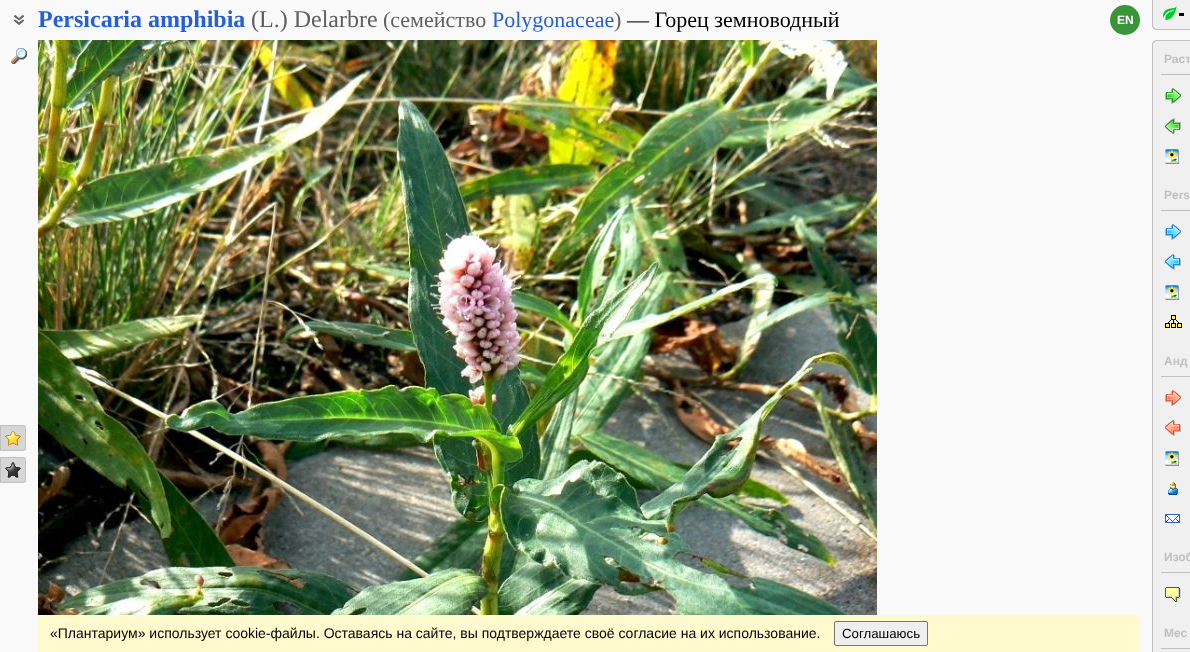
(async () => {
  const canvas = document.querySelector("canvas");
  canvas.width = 1190;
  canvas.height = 652;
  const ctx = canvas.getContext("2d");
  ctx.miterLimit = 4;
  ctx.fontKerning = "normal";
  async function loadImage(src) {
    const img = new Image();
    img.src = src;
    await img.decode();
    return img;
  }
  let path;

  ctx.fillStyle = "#f9f9f9";
  ctx.fillRect(0, 0, 1190, 652);
  ctx.drawImage(await loadImage("img/1.png"), 14, 15, 10, 10);
  ctx.fillStyle = "#389638";
  ctx.beginPath();
  ctx.arc(1125, 20, 15, 0, Math.PI * 2);
  ctx.fill();
  ctx.drawImage(await loadImage("img/2.png"), 11, 48, 16, 16);
  ctx.fillStyle = "#d6d6d6";
  ctx.beginPath();
  ctx.roundRect(0, 425, 26, 26, [0, 3, 3, 0]);
  ctx.fill();
  ctx.drawImage(await loadImage("img/3.png"), 5, 431, 16, 15);
  ctx.beginPath();
  ctx.roundRect(0.5, 425.5, 25, 25, [0, 2.5, 2.5, 0]);
  ctx.strokeStyle = "#c0c0c0";
  ctx.stroke();
  ctx.beginPath();
  ctx.roundRect(0, 457, 26, 26, [0, 3, 3, 0]);
  ctx.fill();
  ctx.drawImage(await loadImage("img/4.png"), 5, 462, 16, 16);
  ctx.beginPath();
  ctx.roundRect(0.5, 457.5, 25, 25, [0, 2.5, 2.5, 0]);
  ctx.stroke();
  ctx.drawImage(await loadImage("img/5.png"), 38, 40, 839, 575);
  ctx.fillStyle = "#f0f0f0";
  ctx.beginPath();
  ctx.roundRect(1152, 0, 38, 30, [0, 0, 0, 5]);
  ctx.fill();
  ctx.drawImage(await loadImage("img/6.png"), 1163, 6, 14, 14);
  ctx.fillStyle = "#c0c0c0";
  path = new Path2D("M1152 0H1190V30H1157C1154 30 1152 28 1152 25ZM1153 0H1190V29H1157C1155 29 1153 27 1153 25Z");
  ctx.fill(path, "evenodd");
  ctx.fillStyle = "#000000";
  ctx.fillRect(1179, 13, 5, 3);
  ctx.fillStyle = "#f0f0f0";
  path = new Path2D("M1157 40H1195V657H1157C1154 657 1152 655 1152 652V45C1152 42 1154 40 1157 40Z");
  ctx.fill(path);
  ctx.fillStyle = "#c0c0c0";
  path = new Path2D("M1157 40H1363V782H1157C1154 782 1152 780 1152 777V45C1152 42 1154 40 1157 40ZM1157 41H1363V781H1157C1155 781 1153 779 1153 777V45C1153 43 1155 41 1157 41Z");
  ctx.fill(path, "evenodd");
  ctx.fillRect(1161, 74, 29, 1);
  ctx.drawImage(await loadImage("img/7.png"), 1165, 88, 16, 16);
  ctx.drawImage(await loadImage("img/8.png"), 1165, 118, 16, 16);
  ctx.drawImage(await loadImage("img/9.png"), 1165, 149, 14, 15);
  ctx.fillRect(1161, 210, 29, 1);
  ctx.drawImage(await loadImage("img/10.png"), 1165, 224, 16, 16);
  ctx.drawImage(await loadImage("img/11.png"), 1165, 254, 16, 16);
  ctx.drawImage(await loadImage("img/9.png"), 1165, 285, 14, 15);
  ctx.drawImage(await loadImage("img/12.png"), 1165, 315, 17, 13);
  ctx.fillRect(1161, 376, 29, 1);
  ctx.drawImage(await loadImage("img/13.png"), 1165, 390, 16, 16);
  ctx.drawImage(await loadImage("img/14.png"), 1165, 420, 16, 16);
  ctx.drawImage(await loadImage("img/9.png"), 1165, 451, 14, 15);
  ctx.drawImage(await loadImage("img/15.png"), 1168, 482, 10, 13);
  ctx.drawImage(await loadImage("img/16.png"), 1165, 514, 15, 9);
  ctx.fillRect(1161, 572, 29, 1);
  ctx.drawImage(await loadImage("img/17.png"), 1165, 587, 16, 15);
  ctx.fillRect(1161, 648, 29, 1);
  ctx.fillStyle = "#fffacd";
  ctx.fillRect(38, 615, 1102, 37);
  ctx.fillStyle = "#efefef";
  ctx.beginPath();
  ctx.roundRect(834.5, 621.5, 93, 24, 1.5);
  ctx.fill();
  ctx.strokeStyle = "#767676";
  ctx.stroke();
  ctx.font = "bold 24px Liberation Serif";
  ctx.fillStyle = "#245edc";
  ctx.fillText("Persicaria amphibia", 38, 27);
  ctx.font = "24px Liberation Serif";
  ctx.fillStyle = "#606060";
  ctx.fillText("(L.) Delarbre", 251, 27);
  ctx.font = "22px Liberation Serif";
  ctx.fillText("(семейство", 383, 27);
  ctx.fillStyle = "#245edc";
  ctx.fillText("Polygonaceae", 492, 27);
  ctx.fillStyle = "#606060";
  ctx.fillText(")", 614, 27);
  ctx.fillStyle = "#000000";
  ctx.fillText("— Горец земноводный", 627, 27);
  ctx.font = "bold 12px Liberation Sans";
  ctx.fillStyle = "#fefefe";
  ctx.fillText("EN", 1117, 24);
  ctx.fillStyle = "#c0c0c0";
  for (const [text, x, y] of [
    ["Раст", 1164, 63],
    ["Pers", 1164, 199],
    ["Анд", 1164, 365],
    ["Изоб", 1164, 561],
    ["Мес", 1164, 637],
  ]) {
    ctx.fillText(text, x, y);
  }
  ctx.font = "14px Liberation Sans";
  ctx.fillStyle = "#000000";
  ctx.fillText("«Плантариум» использует cookie-файлы. Оставаясь на сайте, вы подтверждаете своё согласие на их использование.", 50, 638);
  ctx.font = "13.25px Liberation Sans";
  ctx.fillText("Соглашаюсь", 842, 638);
})();
